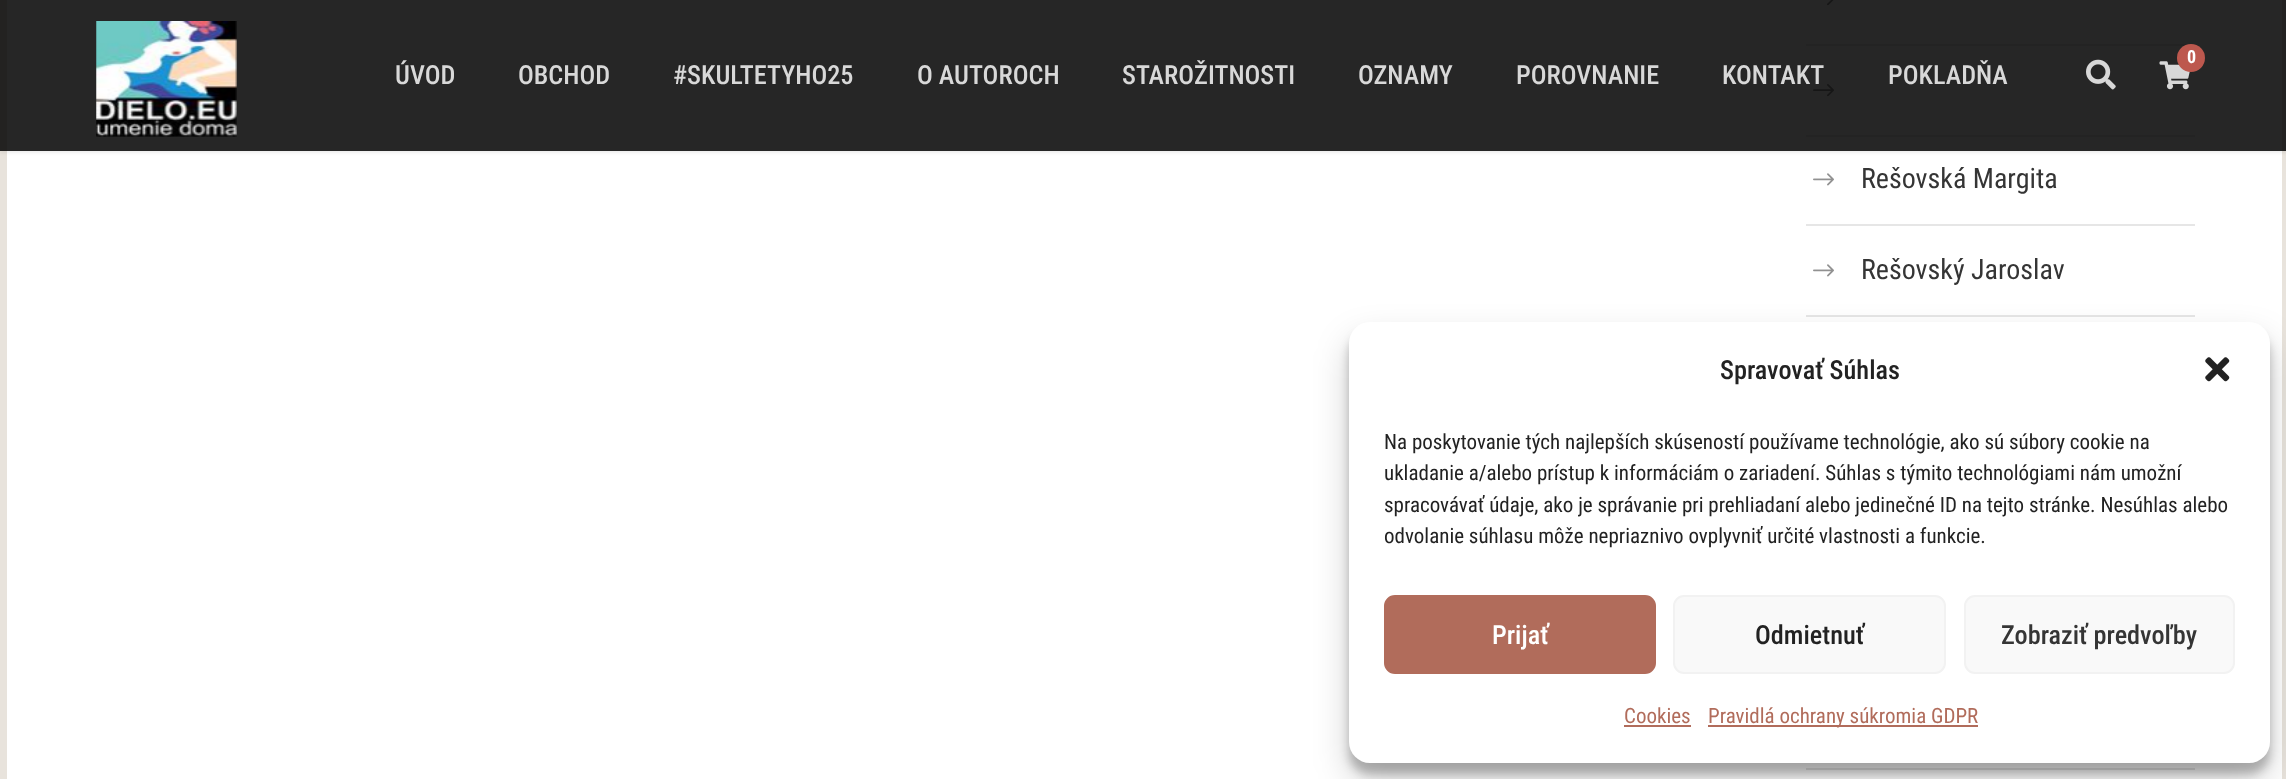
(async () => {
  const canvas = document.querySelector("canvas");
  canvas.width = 2286;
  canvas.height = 779;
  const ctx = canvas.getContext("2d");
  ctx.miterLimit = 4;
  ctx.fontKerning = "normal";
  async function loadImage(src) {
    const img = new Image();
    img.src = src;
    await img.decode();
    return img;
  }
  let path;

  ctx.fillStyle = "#e8e3dc";
  ctx.fillRect(0, 0, 2286, 779);
  ctx.fillStyle = "#ffffff";
  ctx.fillRect(7, 0, 2275, 779);
  ctx.drawImage(await loadImage("img/4.png"), 1827, 0, 7, 6);
  ctx.fillStyle = "#e6e6e6";
  ctx.fillRect(1806, 44, 389, 2);
  ctx.drawImage(await loadImage("img/5.png"), 1813, 84, 21, 13);
  ctx.fillRect(1806, 135, 389, 2);
  ctx.save();
  path = new Path2D("M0 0H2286V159H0ZM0 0H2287V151H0Z");
  ctx.clip(path, "evenodd");
  ctx.fillStyle = "rgba(0, 0, 0, 0.1)";
  ctx.filter = "blur(2px)";
  ctx.beginPath();
  ctx.rect(0, 2, 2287, 150);
  ctx.fill();
  ctx.filter = "none";
  ctx.restore();
  ctx.fillStyle = "rgba(0, 0, 0, 0.85)";
  ctx.fillRect(0, 0, 2286, 151);
  ctx.drawImage(await loadImage("img/1.png"), 96, 21, 141, 116);
  ctx.drawImage(await loadImage("img/2.png"), 2159, 61, 31, 29);
  ctx.fillStyle = "#bd584e";
  ctx.beginPath();
  ctx.arc(2191, 58, 14, 0, Math.PI * 2);
  ctx.fill();
  ctx.drawImage(await loadImage("img/3.png"), 2086, 59, 30, 31);
  ctx.drawImage(await loadImage("img/6.png"), 1813, 173, 21, 13);
  ctx.fillStyle = "#e6e6e6";
  ctx.fillRect(1806, 224, 389, 2);
  ctx.drawImage(await loadImage("img/6.png"), 1813, 264, 21, 13);
  ctx.fillRect(1806, 315, 389, 2);
  ctx.fillRect(1806, 768, 389, 2);
  ctx.fillStyle = "rgba(0, 0, 0, 0.23)";
  ctx.filter = "blur(5px)";
  ctx.beginPath();
  ctx.roundRect(1349, 333, 921, 441, 21);
  ctx.fill();
  ctx.filter = "none";
  ctx.fillStyle = "rgba(0, 0, 0, 0.19)";
  ctx.filter = "blur(17.5px)";
  ctx.beginPath();
  ctx.roundRect(1349, 340, 921, 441, 21);
  ctx.fill();
  ctx.filter = "none";
  ctx.fillStyle = "#ffffff";
  ctx.beginPath();
  ctx.roundRect(1349, 322, 921, 441, 21);
  ctx.fill();
  ctx.drawImage(await loadImage("img/7.png"), 2205, 357, 25, 25);
  ctx.fillStyle = "#b16c5b";
  ctx.beginPath();
  ctx.roundRect(1385, 596, 270, 77, 10);
  ctx.fill();
  ctx.strokeStyle = "#b16c5b";
  ctx.lineWidth = 2;
  ctx.stroke();
  ctx.fillStyle = "#f9f9f9";
  ctx.beginPath();
  ctx.roundRect(1674, 596, 271, 77, 10);
  ctx.fill();
  ctx.strokeStyle = "#f2f2f2";
  ctx.stroke();
  ctx.beginPath();
  ctx.roundRect(1965, 596, 269, 77, 10);
  ctx.fill();
  ctx.stroke();
  ctx.fillStyle = "#b16c5b";
  ctx.fillRect(1624, 725, 67, 2);
  ctx.fillRect(1708, 725, 270, 2);
  ctx.font = "bold 18px Roboto Condensed";
  ctx.fillStyle = "#ffffff";
  ctx.fillText("0", 2187, 63);
  ctx.font = "500 26.25px Roboto Condensed";
  ctx.fillStyle = "#d8d8d8";
  for (const [text, x, y] of [
    ["ÚVOD", 395, 84],
    ["OBCHOD", 518, 84],
    ["#SKULTETYHO25", 673, 84],
    ["O AUTOROCH", 917, 84],
    ["STAROŽITNOSTI", 1122, 84],
    ["OZNAMY", 1358, 84],
    ["POROVNANIE", 1516, 84],
    ["KONTAKT", 1722, 84],
    ["POKLADŇA", 1888, 84],
  ]) {
    ctx.fillText(text, x, y);
  }
  ctx.font = "28px Roboto Condensed";
  ctx.fillStyle = "#353535";
  ctx.fillText("Rešovská Margita", 1861, 188);
  ctx.fillText("Rešovský Jaroslav", 1861, 279);
  ctx.font = "500 26.25px Roboto Condensed";
  ctx.fillStyle = "#222222";
  ctx.fillText("Spravovať Súhlas", 1720, 379);
  ctx.font = "21px Roboto Condensed";
  for (const [text, x, y] of [
    ["Na poskytovanie tých najlepších skúseností používame technológie, ako sú súbory cookie na", 1384, 449],
    ["ukladanie a/alebo prístup k informáciám o zariadení. Súhlas s týmito technológiami nám umožní", 1384, 480],
    ["spracovávať údaje, ako je správanie pri prehliadaní alebo jedinečné ID na tejto stránke. Nesúhlas alebo", 1384, 512],
    ["odvolanie súhlasu môže nepriaznivo ovplyvniť určité vlastnosti a funkcie.", 1384, 543],
  ]) {
    ctx.fillText(text, x, y);
  }
  ctx.font = "500 26.25px Roboto Condensed";
  ctx.fillStyle = "#ffffff";
  ctx.fillText("Prijať", 1492, 644);
  ctx.fillStyle = "#222222";
  ctx.fillText("Odmietnuť", 1755, 644);
  ctx.fillStyle = "#353535";
  ctx.fillText("Zobraziť predvoľby", 2001, 644);
  ctx.font = "21px Roboto Condensed";
  ctx.fillStyle = "#b16c5b";
  ctx.fillText("Cookies", 1624, 723);
  ctx.fillText("Pravidlá ochrany súkromia GDPR", 1708, 723);
})();
